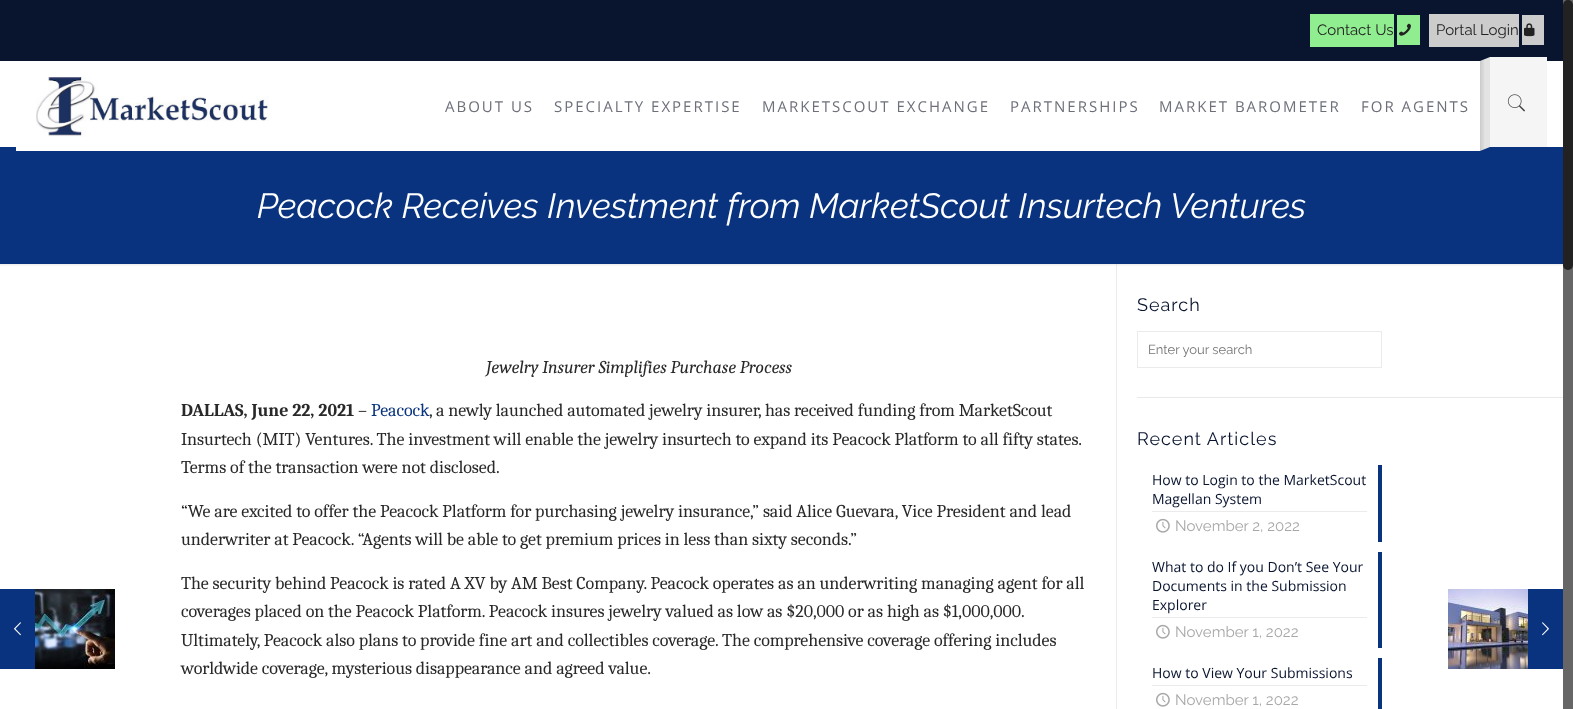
(async () => {
  const canvas = document.querySelector("canvas");
  canvas.width = 1573;
  canvas.height = 709;
  const ctx = canvas.getContext("2d");
  ctx.miterLimit = 4;
  ctx.fontKerning = "normal";
  async function loadImage(src) {
    const img = new Image();
    img.src = src;
    await img.decode();
    return img;
  }
  let path;

  ctx.fillStyle = "#ffffff";
  ctx.fillRect(0, 0, 1573, 709);
  ctx.fillStyle = "#09337f";
  ctx.fillRect(0, 589, 35, 80);
  ctx.drawImage(await loadImage("img/1.png"), 14, 622, 7, 14);
  ctx.drawImage(await loadImage("img/2.png"), 35, 589, 80, 80);
  for (const [x, y, w, h, color] of [
    [0, 0, 1563, 61, "#09142f"],
    [1310, 14, 84, 33, "#90ee90"],
    [1397, 15, 23, 30, "#90ee90"],
  ]) {
    ctx.fillStyle = color;
    ctx.fillRect(x, y, w, h);
  }
  ctx.drawImage(await loadImage("img/3.png"), 1399, 23, 12, 13);
  ctx.fillStyle = "#cccccc";
  ctx.fillRect(1429, 14, 90, 33);
  ctx.fillRect(1522, 15, 22, 30);
  ctx.drawImage(await loadImage("img/4.png"), 1524, 23, 11, 14);
  ctx.fillStyle = "#09337f";
  ctx.fillRect(0, 147, 1563, 117);
  ctx.fillStyle = "#ffffff";
  ctx.fillRect(16, 147, 1464, 4);
  ctx.drawImage(await loadImage("img/5.png"), 36, 77, 233, 60);
  ctx.fillStyle = "#f5f5f5";
  ctx.fillRect(1490, 57, 57, 90);
  ctx.fillStyle = "#e3e3e3";
  path = new Path2D("M1480 61L1490 57V147L1480 151Z");
  ctx.fill(path);
  ctx.drawImage(await loadImage("img/6.png"), 1480, 60, 4, 91);
  ctx.drawImage(await loadImage("img/7.png"), 1507, 94, 19, 18);
  ctx.fillStyle = "#ebebeb";
  ctx.fillRect(1116, 264, 1, 445);
  ctx.drawImage(await loadImage("img/8.png"), 0, 264, 1563, 2);
  ctx.strokeStyle = "#ebebeb";
  ctx.strokeRect(1137.5, 331.5, 244, 36);
  for (const [x, y, w, h, color] of [
    [1137, 397, 426, 1, "#e9e9e9"],
    [1152, 511, 215, 1, "#ebebeb"],
    [1378, 465, 4, 77, "#09337f"],
  ]) {
    ctx.fillStyle = color;
    ctx.fillRect(x, y, w, h);
  }
  ctx.drawImage(await loadImage("img/9.png"), 1156, 518, 14, 15);
  ctx.fillStyle = "#ebebeb";
  ctx.fillRect(1152, 617, 215, 1);
  ctx.fillStyle = "#09337f";
  ctx.fillRect(1378, 552, 4, 96);
  ctx.drawImage(await loadImage("img/9.png"), 1156, 624, 14, 15);
  ctx.fillStyle = "#ebebeb";
  ctx.fillRect(1152, 685, 215, 1);
  ctx.fillStyle = "#09337f";
  ctx.fillRect(1378, 658, 4, 51);
  ctx.drawImage(await loadImage("img/9.png"), 1156, 692, 14, 15);
  ctx.fillStyle = "#666666";
  ctx.fillRect(1563, 0, 10, 709);
  ctx.fillStyle = "#222222";
  ctx.beginPath();
  ctx.roundRect(1563, 0, 10, 270, 5);
  ctx.fill();
  ctx.drawImage(await loadImage("img/10.png"), 1448, 589, 80, 80);
  ctx.fillStyle = "#09337f";
  ctx.fillRect(1528, 589, 35, 80);
  ctx.drawImage(await loadImage("img/11.png"), 1542, 622, 7, 14);
  ctx.font = "100 15px Raleway";
  ctx.fillStyle = "#222222";
  ctx.fillText("Contact Us", 1317, 35);
  ctx.fillText("Portal Login", 1436, 35);
  ctx.letterSpacing = "2px";
  ctx.font = "15px Open Sans";
  ctx.fillStyle = "#6d7079";
  for (const [text, x, y] of [
    ["ABOUT US", 445, 112],
    ["SPECIALTY EXPERTISE", 554, 112],
    ["MARKETSCOUT EXCHANGE", 762, 112],
    ["PARTNERSHIPS", 1010, 112],
    ["MARKET BAROMETER", 1159, 112],
    ["FOR AGENTS", 1361, 112],
  ]) {
    ctx.fillText(text, x, y);
  }
  ctx.letterSpacing = "0px";
  ctx.font = "italic 100 35px Raleway";
  ctx.fillStyle = "#ffffff";
  ctx.fillText("Peacock Receives Investment from MarketScout Insurtech Ventures", 257, 218);
  ctx.letterSpacing = "-0.07px";
  ctx.font = "italic 18px Caladea";
  ctx.fillStyle = "#292929";
  ctx.fillText("Jewelry Insurer Simplifies Purchase Process", 486, 373);
  ctx.font = "bold 18px Caladea";
  ctx.fillText("DALLAS, June 22, 2021", 181, 416);
  ctx.font = "18px Caladea";
  ctx.fillText("–", 358, 416);
  ctx.fillStyle = "#09337f";
  ctx.fillText("Peacock", 371, 416);
  ctx.fillStyle = "#292929";
  for (const [text, x, y] of [
    [", a newly launched automated jewelry insurer, has received funding from MarketScout", 429, 416],
    ["Insurtech (MIT) Ventures. The investment will enable the jewelry insurtech to expand its Peacock Platform to all fifty states.", 181, 445],
    ["Terms of the transaction were not disclosed.", 181, 473],
    ["“We are excited to offer the Peacock Platform for purchasing jewelry insurance,” said Alice Guevara, Vice President and lead", 181, 517],
    ["underwriter at Peacock. “Agents will be able to get premium prices in less than sixty seconds.”", 181, 545],
    ["The security behind Peacock is rated A XV by AM Best Company. Peacock operates as an underwriting managing agent for all", 181, 589],
    ["coverages placed on the Peacock Platform. Peacock insures jewelry valued as low as $20,000 or as high as $1,000,000.", 181, 617],
    ["Ultimately, Peacock also plans to provide fine art and collectibles coverage. The comprehensive coverage offering includes", 181, 646],
    ["worldwide coverage, mysterious disappearance and agreed value.", 181, 674],
  ]) {
    ctx.fillText(text, x, y);
  }
  ctx.letterSpacing = "1px";
  ctx.font = "100 18px Raleway";
  ctx.fillStyle = "#09142f";
  ctx.fillText("Search", 1137, 311);
  ctx.letterSpacing = "0px";
  ctx.font = "100 13px Raleway";
  ctx.fillStyle = "#757575";
  ctx.fillText("Enter your search", 1148, 354);
  ctx.letterSpacing = "1px";
  ctx.font = "100 18px Raleway";
  ctx.fillStyle = "#09142f";
  ctx.fillText("Recent Articles", 1137, 445);
  ctx.letterSpacing = "0px";
  ctx.font = "14px Open Sans";
  ctx.fillText("How to Login to the MarketScout", 1152, 485);
  ctx.fillText("Magellan System", 1152, 504);
  ctx.font = "100 15px Raleway";
  ctx.fillStyle = "#a8a8a8";
  ctx.fillText("November 2, 2022", 1175, 531);
  ctx.font = "14px Open Sans";
  ctx.fillStyle = "#09142f";
  for (const [text, x, y] of [
    ["What to do If you Don’t See Your", 1152, 572],
    ["Documents in the Submission", 1152, 591],
    ["Explorer", 1152, 610],
  ]) {
    ctx.fillText(text, x, y);
  }
  ctx.font = "100 15px Raleway";
  ctx.fillStyle = "#a8a8a8";
  ctx.fillText("November 1, 2022", 1175, 637);
  ctx.font = "14px Open Sans";
  ctx.fillStyle = "#09142f";
  ctx.fillText("How to View Your Submissions", 1152, 678);
  ctx.font = "100 15px Raleway";
  ctx.fillStyle = "#a8a8a8";
  ctx.fillText("November 1, 2022", 1175, 705);
})();
